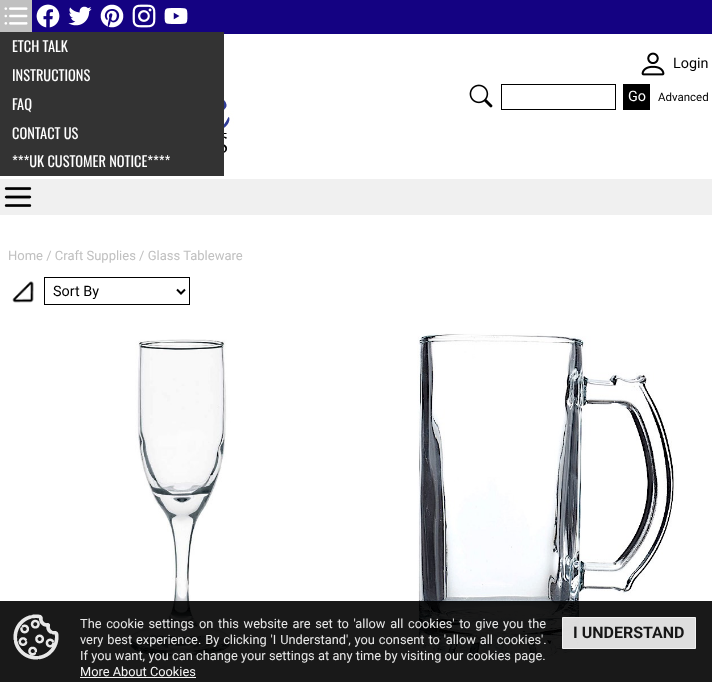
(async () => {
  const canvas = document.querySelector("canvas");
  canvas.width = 712;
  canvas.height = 682;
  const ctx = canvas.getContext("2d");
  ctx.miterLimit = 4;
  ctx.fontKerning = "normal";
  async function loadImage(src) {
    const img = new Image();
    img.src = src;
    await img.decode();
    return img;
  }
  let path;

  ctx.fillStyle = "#ffffff";
  ctx.fillRect(0, 0, 712, 682);
  ctx.fillStyle = "#140282";
  ctx.fillRect(32, 0, 680, 34);
  ctx.drawImage(await loadImage("img/1.png"), 36, 4, 24, 24);
  ctx.drawImage(await loadImage("img/2.png"), 68, 6, 24, 20);
  ctx.drawImage(await loadImage("img/3.png"), 100, 4, 24, 24);
  ctx.drawImage(await loadImage("img/4.png"), 132, 4, 24, 24);
  ctx.drawImage(await loadImage("img/5.png"), 164, 8, 24, 16);
  ctx.fillStyle = "#c0c0c0";
  ctx.fillRect(0, 0, 32, 32);
  ctx.drawImage(await loadImage("img/6.png"), 4, 7, 24, 18);
  ctx.fillStyle = "#333333";
  ctx.fillRect(0, 32, 224, 144);
  ctx.drawImage(await loadImage("img/7.png"), 224, 67, 10, 86);
  ctx.drawImage(await loadImage("img/8.png"), 641, 52, 24, 24);
  ctx.drawImage(await loadImage("img/9.png"), 469, 84, 24, 24);
  ctx.strokeStyle = "#000000";
  ctx.strokeRect(501.5, 84.5, 114, 25);
  ctx.fillStyle = "#000000";
  ctx.fillRect(623, 84, 27, 26);
  ctx.fillStyle = "#f0f0f0";
  ctx.fillRect(0, 179, 712, 36);
  ctx.drawImage(await loadImage("img/10.png"), 4, 187, 28, 20);
  ctx.drawImage(await loadImage("img/11.png"), 12, 281, 22, 22);
  ctx.strokeRect(44.5, 277.5, 145, 27);
  path = new Path2D("M177 289.5L181 293.5L185 289.5");
  ctx.lineWidth = 2;
  ctx.stroke(path);
  ctx.drawImage(await loadImage("img/12.png"), 129, 339, 102, 320);
  ctx.drawImage(await loadImage("img/13.png"), 417, 333, 260, 330);
  ctx.fillStyle = "rgba(0, 0, 0, 0.9)";
  ctx.fillRect(0, 601, 712, 81);
  ctx.drawImage(await loadImage("img/14.png"), 13, 614, 46, 46);
  ctx.fillStyle = "#f5f5f5";
  ctx.fillRect(80, 677, 116, 1);
  ctx.fillStyle = "rgba(244, 244, 244, 0.9)";
  ctx.beginPath();
  ctx.rect(562.5, 617.5, 133, 31);
  ctx.fill();
  ctx.strokeStyle = "#f2f2f2";
  ctx.lineWidth = 1;
  ctx.stroke();
  ctx.font = "14.4px Oswald";
  ctx.fillStyle = "#ffffff";
  for (const [text, x, y] of [
    ["ETCH TALK", 12, 52],
    ["INSTRUCTIONS", 12, 81],
    ["FAQ", 12, 110],
    ["CONTACT US", 12, 139],
    ["***UK CUSTOMER NOTICE****", 12, 167],
  ]) {
    ctx.fillText(text, x, y);
  }
  ctx.font = "14.4px Roboto";
  ctx.fillStyle = "#000000";
  ctx.fillText("Login", 673, 68);
  ctx.fillStyle = "#ffffff";
  ctx.fillText("Go", 628, 101);
  ctx.font = "11.5px Roboto";
  ctx.fillStyle = "#000000";
  ctx.fillText("Advanced", 658, 101);
  ctx.font = "13px Roboto";
  ctx.fillStyle = "#c0c0c0";
  ctx.fillText("Home / Craft Supplies / Glass Tableware", 8, 260);
  ctx.font = "14.4px Roboto";
  ctx.fillStyle = "#000000";
  ctx.fillText("Sort By", 53, 296);
  ctx.wordSpacing = "1.5px";
  ctx.font = "12.8px Roboto";
  ctx.fillStyle = "#e8e8e8";
  ctx.fillText("The cookie settings on this website are set to 'allow all cookies' to give you the", 80, 628);
  ctx.wordSpacing = "0.75px";
  ctx.fillText("very best experience. By clicking 'I Understand', you consent to 'allow all cookies'.", 80, 644);
  ctx.wordSpacing = "0.1px";
  ctx.fillText("If you want, you can change your settings at any time by visiting our cookies page.", 80, 660);
  ctx.wordSpacing = "0px";
  ctx.fillStyle = "#f5f5f5";
  ctx.fillText("More About Cookies", 80, 676);
  ctx.font = "bold 16px Roboto";
  ctx.fillStyle = "#161616";
  ctx.fillText("I UNDERSTAND", 573, 638);
})();
